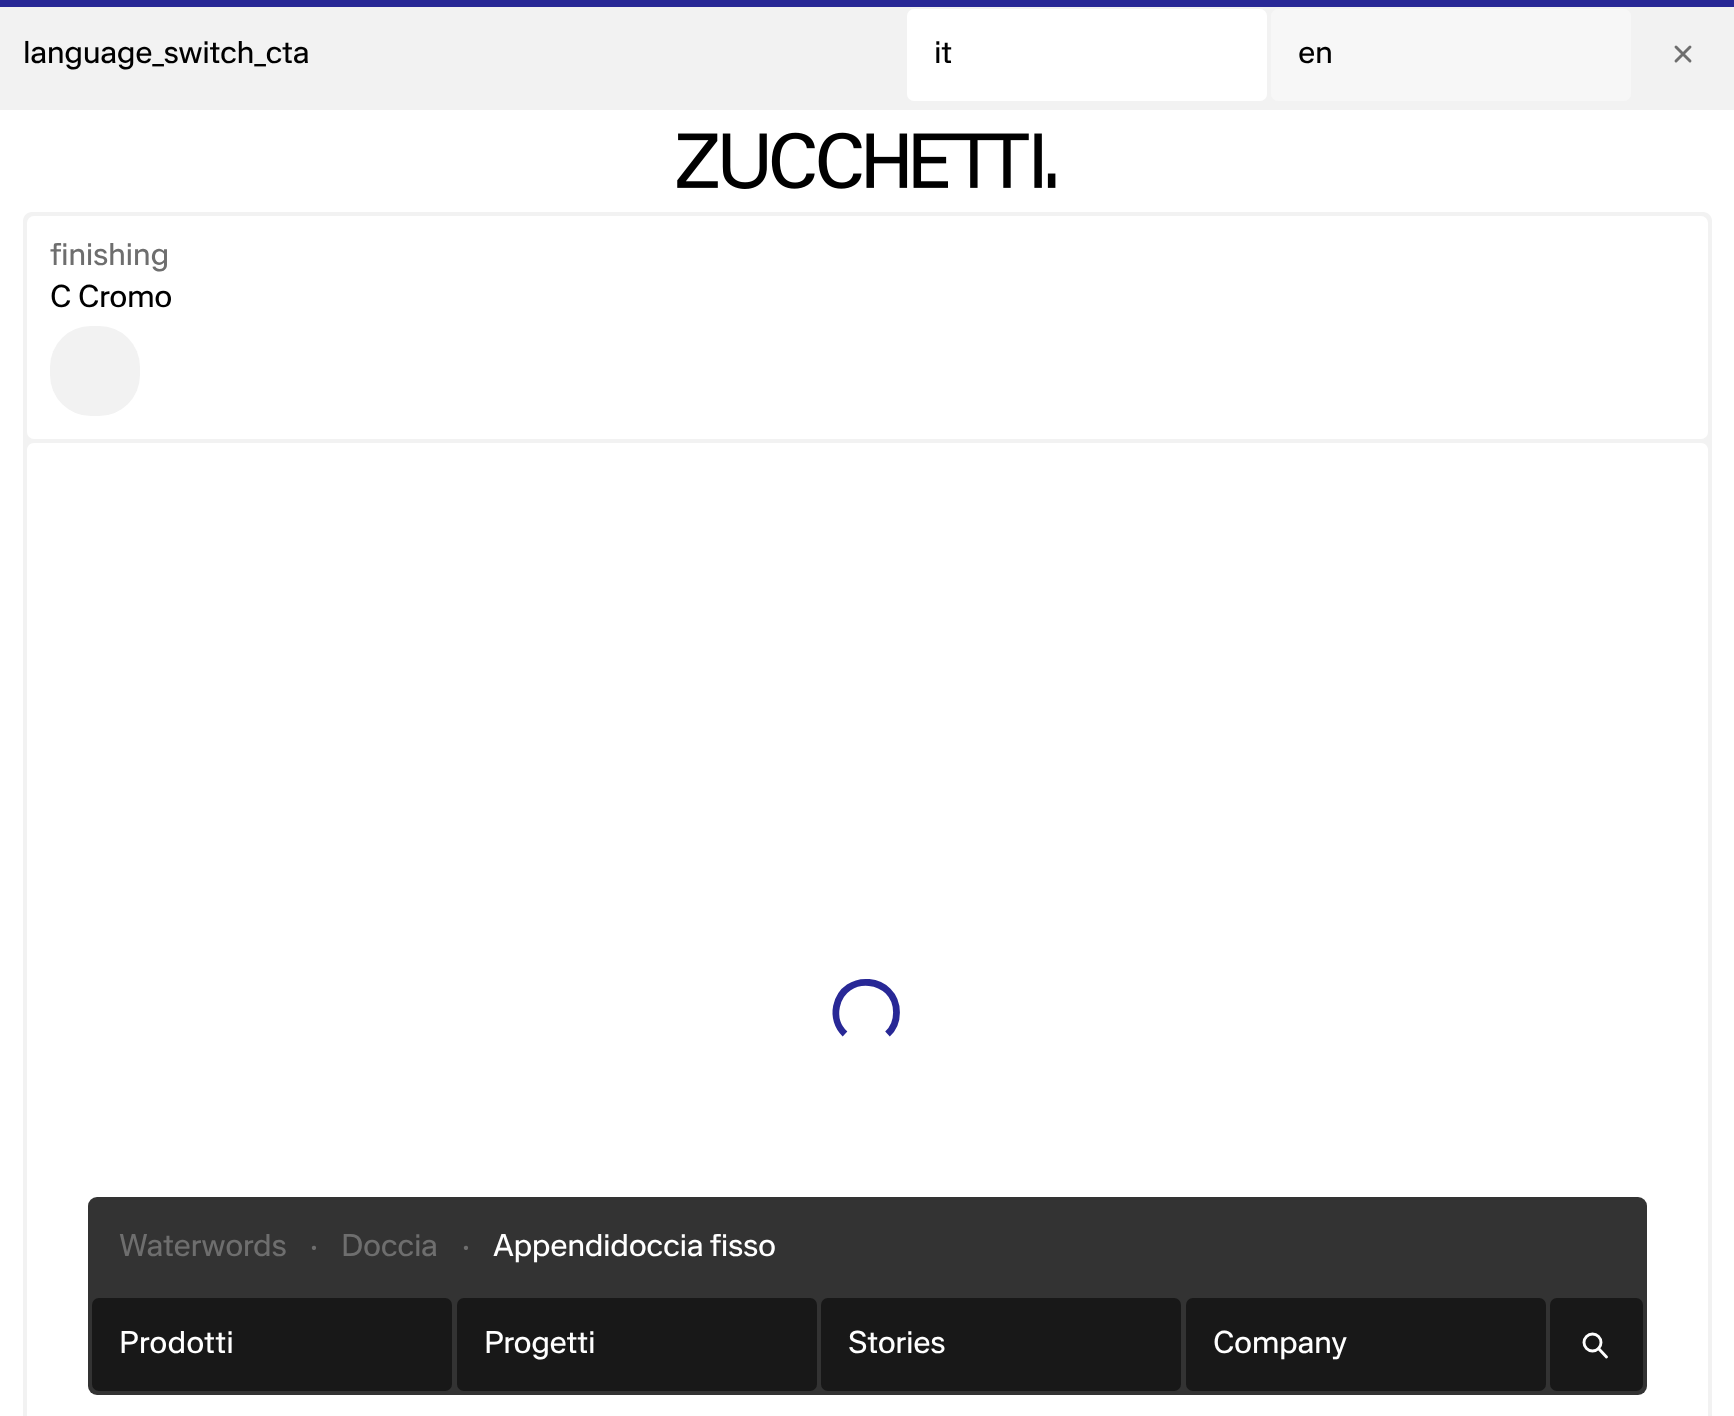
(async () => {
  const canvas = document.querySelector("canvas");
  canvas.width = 1734;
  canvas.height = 1416;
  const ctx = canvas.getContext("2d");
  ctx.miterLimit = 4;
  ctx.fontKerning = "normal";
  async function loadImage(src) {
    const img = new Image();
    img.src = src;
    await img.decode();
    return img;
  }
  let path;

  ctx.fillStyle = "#ffffff";
  ctx.fillRect(0, 0, 1734, 1416);
  ctx.fillStyle = "#282896";
  ctx.fillRect(0, 0, 1734, 7);
  ctx.fillStyle = "#f2f2f2";
  ctx.fillRect(0, 7, 1734, 103);
  ctx.fillStyle = "#ffffff";
  ctx.beginPath();
  ctx.roundRect(907, 9, 360, 92, 7);
  ctx.fill();
  ctx.fillStyle = "#f7f7f7";
  ctx.beginPath();
  ctx.roundRect(1271, 9, 360, 92, 7);
  ctx.fill();
  path = new Path2D("M1676 47L1690 61M1690 47L1676 61");
  ctx.strokeStyle = "#6e6e6e";
  ctx.lineWidth = 2.9;
  ctx.lineCap = "round";
  ctx.stroke(path);
  ctx.drawImage(await loadImage("img/1.png"), 677, 132, 379, 57);
  ctx.fillStyle = "#f2f2f2";
  path = new Path2D("M32 212H1703C1708 212 1712 216 1712 221V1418H23V221C23 216 27 212 32 212Z");
  ctx.fill(path);
  ctx.fillStyle = "#ffffff";
  ctx.beginPath();
  ctx.roundRect(27, 216, 1681, 223, 7);
  ctx.fill();
  ctx.fillStyle = "#f2f2f2";
  ctx.beginPath();
  ctx.roundRect(50, 326, 90, 90, 41);
  ctx.fill();
  ctx.fillStyle = "#ffffff";
  path = new Path2D("M34 443H1701C1705 443 1708 446 1708 450V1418H27V450C27 446 30 443 34 443Z");
  ctx.fill(path);
  path = new Path2D("M845 1034C837.5 1027 834.5 1016.5 836.5 1006.5C843.5 971 896.5 976 896.5 1012.5C896.5 1020.5 893.5 1028.5 887.5 1034");
  ctx.strokeStyle = "#282896";
  ctx.lineWidth = 6.8;
  ctx.lineCap = "butt";
  ctx.stroke(path);
  ctx.fillStyle = "#333333";
  ctx.beginPath();
  ctx.roundRect(88, 1197, 1559, 198, 9);
  ctx.fill();
  ctx.fillStyle = "#181818";
  ctx.beginPath();
  ctx.roundRect(92, 1298, 360, 93, 7);
  ctx.fill();
  ctx.beginPath();
  ctx.roundRect(457, 1298, 360, 93, 7);
  ctx.fill();
  ctx.beginPath();
  ctx.roundRect(821, 1298, 360, 93, 7);
  ctx.fill();
  ctx.beginPath();
  ctx.roundRect(1186, 1298, 360, 93, 7);
  ctx.fill();
  ctx.beginPath();
  ctx.roundRect(1550, 1298, 93, 93, 7);
  ctx.fill();
  ctx.beginPath();
  ctx.arc(1592.5, 1342.5, 8.5, 0, Math.PI * 2);
  ctx.strokeStyle = "#ffffff";
  ctx.lineWidth = 2.9;
  ctx.stroke();
  path = new Path2D("M1598.5 1348.5L1606.5 1357");
  ctx.lineCap = "round";
  ctx.stroke(path);
  ctx.letterSpacing = "-0.4px";
  ctx.font = "31.5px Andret";
  ctx.fillStyle = "#000000";
  for (const [text, x, y] of [
    ["language_switch_cta", 23, 63],
    ["it", 934, 63],
    ["en", 1298, 63],
  ]) {
    ctx.fillText(text, x, y);
  }
  ctx.fillStyle = "#6e6e6e";
  ctx.fillText("finishing", 50, 265);
  ctx.fillStyle = "#000000";
  ctx.fillText("C Cromo", 50, 307);
  ctx.fillStyle = "#6e6e6e";
  for (const [text, x, y] of [
    ["Waterwords", 119, 1256],
    ["•", 309, 1256],
    ["Doccia", 341, 1256],
    ["•", 461, 1256],
  ]) {
    ctx.fillText(text, x, y);
  }
  ctx.fillStyle = "#ffffff";
  ctx.fillText("Appendidoccia fisso", 493, 1256);
  ctx.letterSpacing = "0px";
  ctx.fillText("Prodotti", 119, 1353);
  ctx.letterSpacing = "-0.4px";
  for (const [text, x, y] of [
    ["Progetti", 484, 1353],
    ["Stories", 848, 1353],
    ["Company", 1213, 1353],
  ]) {
    ctx.fillText(text, x, y);
  }
})();
